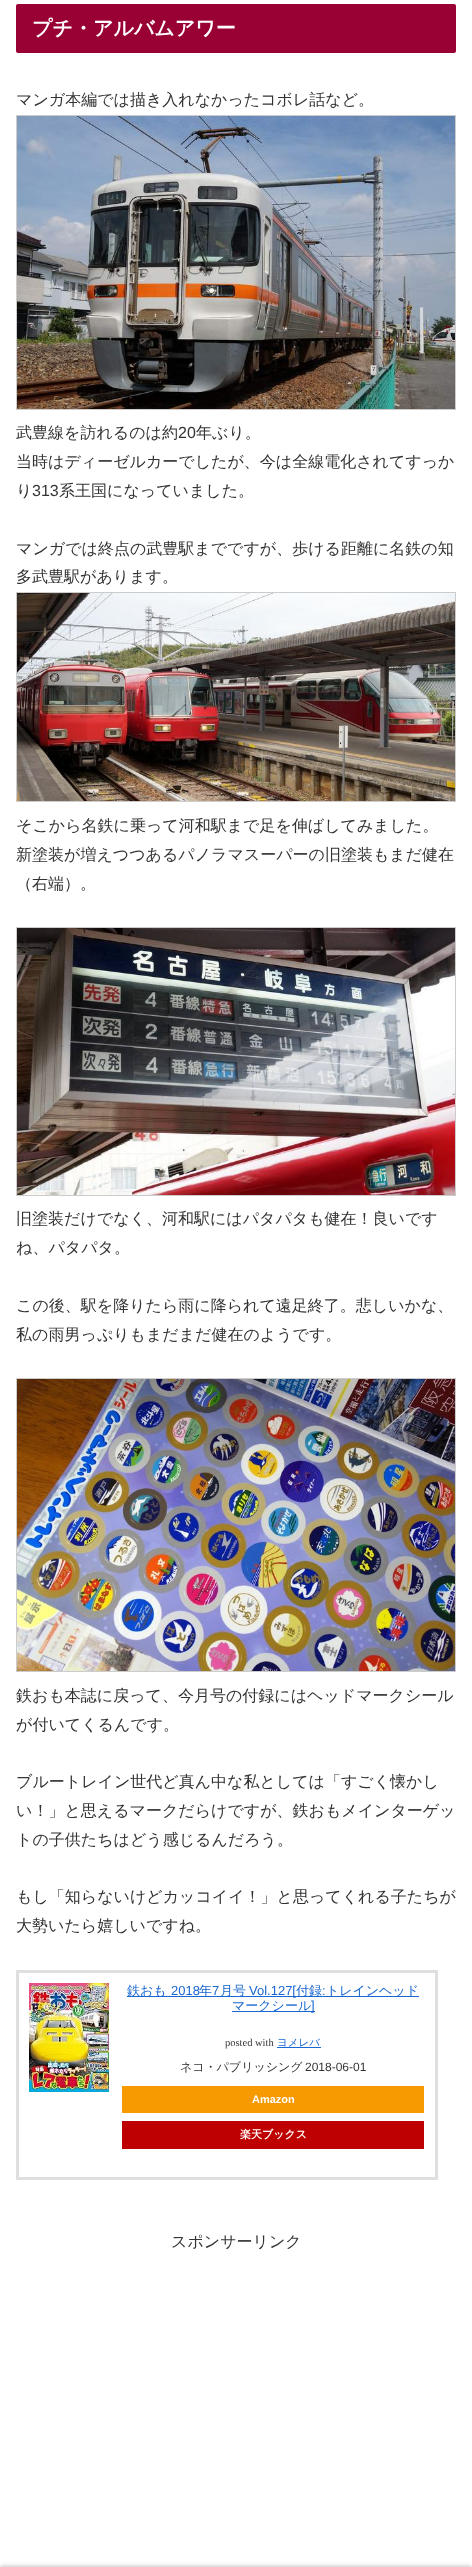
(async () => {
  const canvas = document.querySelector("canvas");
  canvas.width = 472;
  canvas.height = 2567;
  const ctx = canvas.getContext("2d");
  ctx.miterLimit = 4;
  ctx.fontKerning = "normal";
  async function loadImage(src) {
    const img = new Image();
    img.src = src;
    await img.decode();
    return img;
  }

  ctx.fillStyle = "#ffffff";
  ctx.fillRect(0, 0, 472, 2567);
  ctx.fillStyle = "#990033";
  ctx.beginPath();
  ctx.roundRect(16, 4, 440, 49, 2);
  ctx.fill();
  ctx.strokeStyle = "#cccccc";
  ctx.strokeRect(16.5, 115.5, 439, 294);
  ctx.drawImage(await loadImage("img/1.png"), 17, 116, 438, 293);
  ctx.strokeRect(16.5, 592.5, 439, 209);
  ctx.drawImage(await loadImage("img/2.png"), 17, 593, 438, 208);
  ctx.strokeRect(16.5, 927.5, 439, 268);
  ctx.drawImage(await loadImage("img/3.png"), 17, 928, 438, 267);
  ctx.strokeRect(16.5, 1378.5, 439, 293);
  ctx.drawImage(await loadImage("img/4.png"), 17, 1379, 438, 292);
  ctx.strokeStyle = "#dfdfdf";
  ctx.lineWidth = 3;
  ctx.strokeRect(17.5, 1971.5, 419, 207);
  ctx.drawImage(await loadImage("img/5.png"), 29, 1983, 80, 109);
  for (const [x, y, w, h, color] of [
    [127, 1996, 292, 1, "#1967d2"],
    [232, 2011, 83, 1, "#1967d2"],
    [277, 2047, 44, 1, "#1967d2"],
    [122, 2086, 302, 27, "#f79901"],
    [122, 2121, 302, 28, "#bf0000"],
  ]) {
    ctx.fillStyle = color;
    ctx.fillRect(x, y, w, h);
  }
  ctx.fillStyle = "#a9a9a9";
  ctx.filter = "blur(2.5px)";
  ctx.beginPath();
  ctx.rect(0, 2567, 472, 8);
  ctx.fill();
  ctx.filter = "none";
  ctx.font = "bold 20px WenQuanYi Zen Hei";
  ctx.fillStyle = "#ffffff";
  ctx.fillText("プチ・アルバムアワー", 32, 35);
  ctx.font = "500 16px WenQuanYi Zen Hei";
  ctx.fillStyle = "#333333";
  ctx.fillText("マンガ本編では描き入れなかったコボレ話など。", 16, 105);
  ctx.fillText("武豊線を訪れるのは約", 16, 438);
  ctx.font = "16px Liberation Sans";
  ctx.fillText("20", 178, 438);
  ctx.font = "500 16px WenQuanYi Zen Hei";
  for (const [text, x, y] of [
    ["年ぶり。", 196, 438],
    ["当時はディーゼルカーでしたが、今は全線電化されてすっか", 16, 467],
    ["り", 16, 496],
  ]) {
    ctx.fillText(text, x, y);
  }
  ctx.font = "16px Liberation Sans";
  ctx.fillText("313", 32, 496);
  ctx.font = "500 16px WenQuanYi Zen Hei";
  for (const [text, x, y] of [
    ["系王国になっていました。", 59, 496],
    ["マンガでは終点の武豊駅までですが、歩ける距離に名鉄の知", 16, 554],
    ["多武豊駅があります。", 16, 582],
    ["そこから名鉄に乗って河和駅まで足を伸ばしてみました。", 16, 831],
    ["新塗装が増えつつあるパノラマスーパーの旧塗装もまだ健在", 16, 860],
    ["（右端）。", 16, 889],
    ["旧塗装だけでなく、河和駅にはパタパタも健在！良いです", 16, 1224],
    ["ね、パタパタ。", 16, 1253],
    ["この後、駅を降りたら雨に降られて遠足終了。悲しいかな、", 16, 1311],
    ["私の雨男っぷりもまだまだ健在のようです。", 16, 1340],
    ["鉄おも本誌に戻って、今月号の付録にはヘッドマークシール", 16, 1701],
    ["が付いてくるんです。", 16, 1730],
    ["ブルートレイン世代ど真ん中な私としては「すごく懐かし", 16, 1787],
    ["い！」と思えるマークだらけですが、鉄おもメインターゲッ", 16, 1816],
    ["トの子供たちはどう感じるんだろう。", 16, 1845],
    ["もし「知らないけどカッコイイ！」と思ってくれる子たちが", 16, 1902],
    ["大勢いたら嬉しいですね。", 16, 1931],
  ]) {
    ctx.fillText(text, x, y);
  }
  ctx.font = "500 13px WenQuanYi Zen Hei";
  ctx.fillStyle = "#1967d2";
  ctx.fillText("鉄おも", 127, 1995);
  ctx.font = "13px Liberation Sans";
  ctx.fillText("2018", 171, 1995);
  ctx.font = "500 13px WenQuanYi Zen Hei";
  ctx.fillText("年", 199, 1995);
  ctx.font = "13px Liberation Sans";
  ctx.fillText("7", 212, 1995);
  ctx.font = "500 13px WenQuanYi Zen Hei";
  ctx.fillText("月号", 220, 1995);
  ctx.font = "13px Liberation Sans";
  ctx.fillText("Vol.127[", 249, 1995);
  ctx.font = "500 13px WenQuanYi Zen Hei";
  ctx.fillText("付録 トレインヘッド", 296, 1995);
  ctx.font = "13px Liberation Sans";
  ctx.fillText(":", 322, 1995);
  ctx.font = "500 13px WenQuanYi Zen Hei";
  ctx.fillText("マークシール", 232, 2010);
  ctx.font = "13px Liberation Sans";
  ctx.fillText("]", 311, 2010);
  ctx.font = "10.5px Liberation Serif";
  ctx.fillStyle = "#333333";
  ctx.fillText("posted with", 225, 2046);
  ctx.font = "500 10.5px WenQuanYi Zen Hei";
  ctx.fillStyle = "#1967d2";
  ctx.fillText("ヨメレバ", 277, 2046);
  ctx.font = "500 12px WenQuanYi Zen Hei";
  ctx.fillStyle = "#333333";
  ctx.fillText("ネコ・パブリッシング", 180, 2071);
  ctx.font = "12px Liberation Sans";
  ctx.fillText("2018-06-01", 305, 2071);
  ctx.font = "bold 11px Liberation Sans";
  ctx.fillStyle = "#ffffff";
  ctx.fillText("Amazon", 252, 2103);
  ctx.font = "bold 11px WenQuanYi Zen Hei";
  ctx.fillText("楽天ブックス", 240, 2138);
  ctx.font = "500 16px WenQuanYi Zen Hei";
  ctx.fillStyle = "#333333";
  ctx.fillText("スポンサーリンク", 171, 2247);
})();
